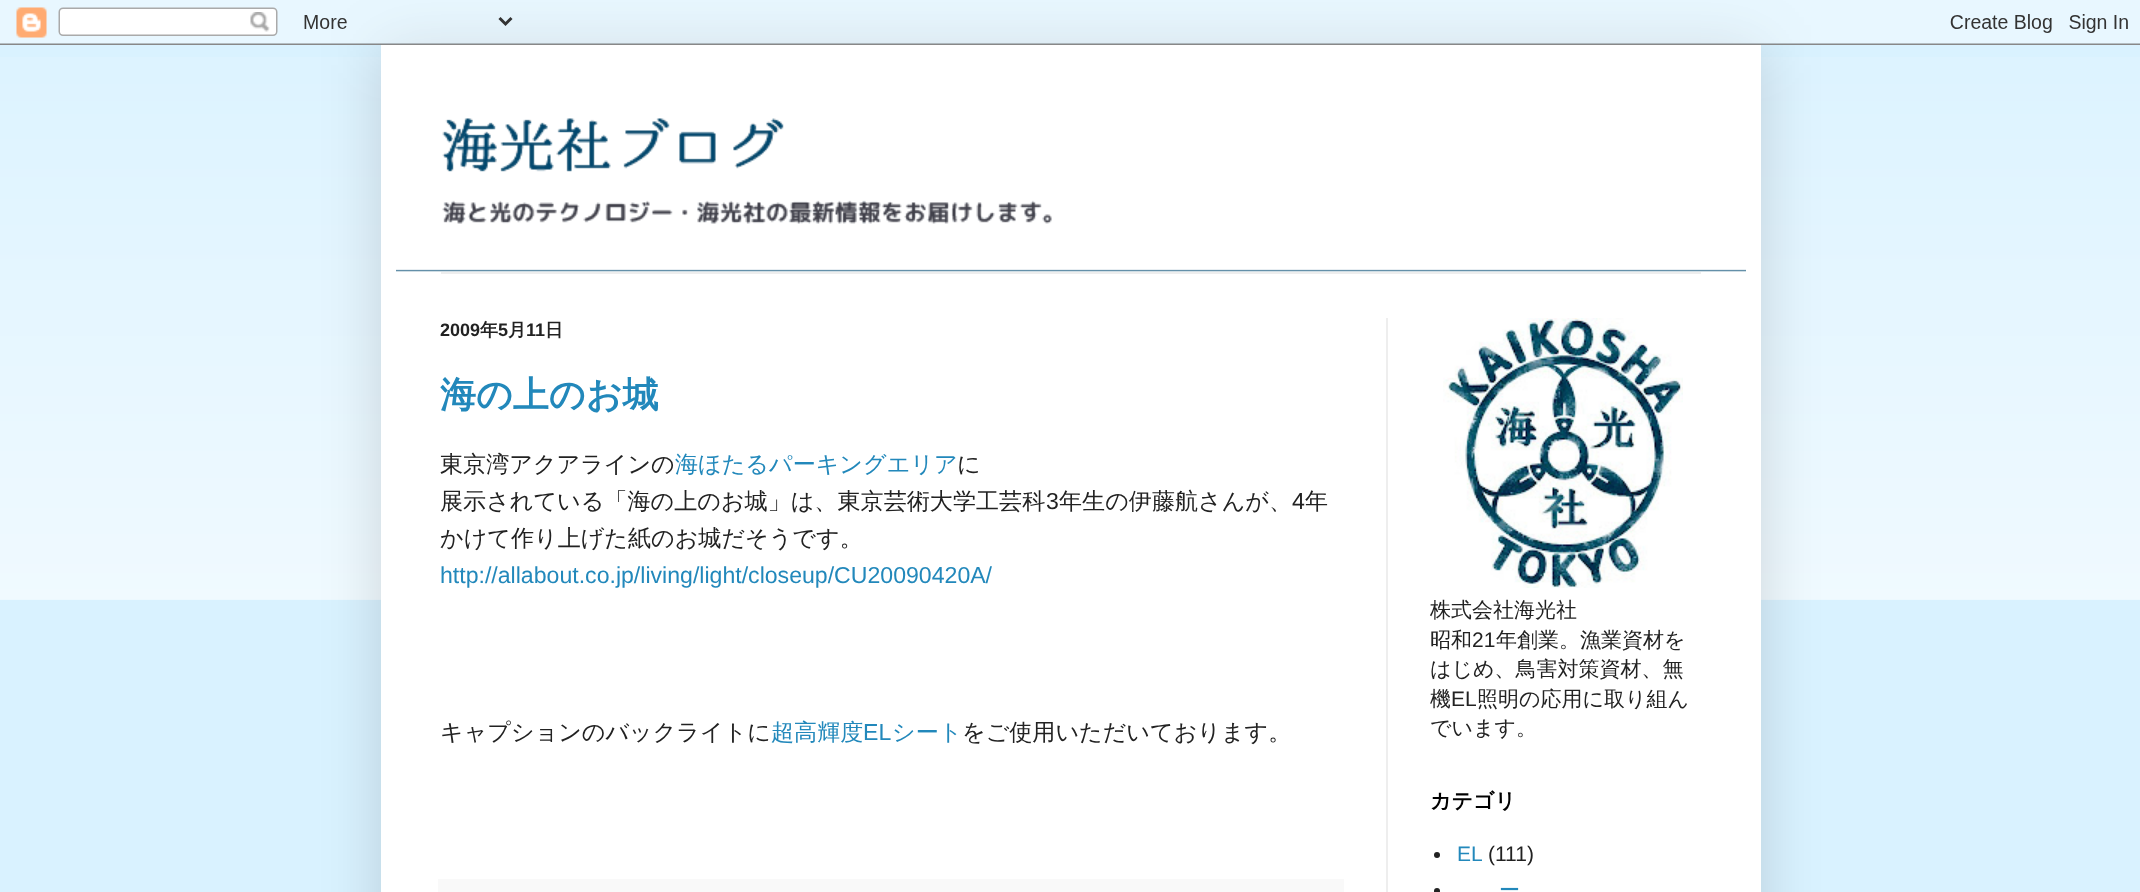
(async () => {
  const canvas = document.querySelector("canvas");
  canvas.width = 2140;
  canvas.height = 892;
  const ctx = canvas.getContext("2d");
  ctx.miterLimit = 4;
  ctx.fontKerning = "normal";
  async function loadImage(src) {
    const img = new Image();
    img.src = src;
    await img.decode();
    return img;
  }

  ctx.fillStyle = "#d9f2ff";
  ctx.fillRect(0, 0, 2140, 892);
  ctx.drawImage(await loadImage("img/2.png"), 0, 57, 2140, 543);
  ctx.fillStyle = "rgba(0, 0, 0, 0.15)";
  ctx.filter = "blur(30px)";
  ctx.beginPath();
  ctx.rect(381, 45, 1380, 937);
  ctx.fill();
  ctx.filter = "none";
  ctx.drawImage(await loadImage("img/1.png"), 0, 0, 2140, 45);
  ctx.fillStyle = "#ffffff";
  ctx.fillRect(381, 45, 1380, 847);
  ctx.drawImage(await loadImage("img/3.png"), 396, 118, 1350, 154);
  for (const [x, y, w, h, color] of [
    [441, 272, 1260, 2, "#eeeeee"],
    [1386, 318, 2, 574, "#eeeeee"],
    [438, 879, 906, 13, "#f9f9f9"],
  ]) {
    ctx.fillStyle = color;
    ctx.fillRect(x, y, w, h);
  }
  ctx.drawImage(await loadImage("img/4.png"), 1443, 318, 240, 270);
  ctx.fillStyle = "#222222";
  ctx.beginPath();
  ctx.arc(1437, 855, 3, 0, Math.PI * 2);
  ctx.fill();
  ctx.beginPath();
  ctx.arc(1437, 891, 3, 0, Math.PI * 2);
  ctx.fill();
  ctx.font = "bold 18px Liberation Sans";
  ctx.fillText("2009", 440, 336);
  ctx.font = "bold 18px WenQuanYi Zen Hei";
  ctx.fillText("年", 480, 336);
  ctx.font = "bold 18px Liberation Sans";
  ctx.fillText("5", 498, 336);
  ctx.font = "bold 18px WenQuanYi Zen Hei";
  ctx.fillText("月", 508, 336);
  ctx.font = "bold 18px Liberation Sans";
  ctx.fillText("11", 526, 336);
  ctx.font = "bold 18px WenQuanYi Zen Hei";
  ctx.fillText("日", 545, 336);
  ctx.font = "bold 36px WenQuanYi Zen Hei";
  ctx.fillStyle = "#2288bb";
  ctx.fillText("海の上のお城", 440, 407);
  ctx.font = "500 23.1px WenQuanYi Zen Hei";
  ctx.fillStyle = "#222222";
  ctx.fillText("東京湾アクアラインの", 440, 472);
  ctx.fillStyle = "#2288bb";
  ctx.fillText("海ほたるパーキングエリア", 675, 472);
  ctx.fillStyle = "#222222";
  ctx.fillText("に", 957, 472);
  ctx.fillText("展示されている「海の上のお城」は、東京芸術大学工芸科", 440, 509);
  ctx.font = "23.1px Liberation Sans";
  ctx.fillText("3", 1046, 509);
  ctx.font = "500 23.1px WenQuanYi Zen Hei";
  ctx.fillText("年生の伊藤航さんが、", 1059, 509);
  ctx.font = "23.1px Liberation Sans";
  ctx.fillText("4", 1292, 509);
  ctx.font = "500 23.1px WenQuanYi Zen Hei";
  ctx.fillText("年", 1305, 509);
  ctx.fillText("かけて作り上げた紙のお城だそうです。", 440, 546);
  ctx.font = "23.1px Liberation Sans";
  ctx.fillStyle = "#2288bb";
  ctx.fillText("http://allabout.co.jp/living/light/closeup/CU20090420A/", 440, 583);
  ctx.font = "500 23.1px WenQuanYi Zen Hei";
  ctx.fillStyle = "#222222";
  ctx.fillText("キャプションのバックライトに", 440, 740);
  ctx.fillStyle = "#2288bb";
  ctx.fillText("超高輝度", 771, 740);
  ctx.font = "23.1px Liberation Sans";
  ctx.fillText("EL", 863, 740);
  ctx.font = "500 23.1px WenQuanYi Zen Hei";
  ctx.fillText("シート", 892, 740);
  ctx.fillStyle = "#222222";
  ctx.fillText("をご使用いただいております。", 962, 740);
  ctx.font = "500 21px WenQuanYi Zen Hei";
  ctx.fillText("株式会社海光社", 1430, 617);
  ctx.fillText("昭和", 1430, 647);
  ctx.font = "21px Liberation Sans";
  ctx.fillText("21", 1472, 647);
  ctx.font = "500 21px WenQuanYi Zen Hei";
  for (const [text, x, y] of [
    ["年創業。漁業資材を", 1496, 647],
    ["はじめ、鳥害対策資材、無", 1430, 676],
    ["機", 1430, 706],
  ]) {
    ctx.fillText(text, x, y);
  }
  ctx.font = "21px Liberation Sans";
  ctx.fillText("EL", 1451, 706);
  ctx.font = "500 21px WenQuanYi Zen Hei";
  ctx.fillText("照明の応用に取り組ん", 1477, 706);
  ctx.fillText("でいます。", 1430, 735);
  ctx.font = "bold 21px WenQuanYi Zen Hei";
  ctx.fillStyle = "#000000";
  ctx.fillText("カテゴリ", 1430, 808);
  ctx.font = "21px Liberation Sans";
  ctx.fillStyle = "#2288bb";
  ctx.fillText("EL", 1457, 861);
  ctx.fillStyle = "#222222";
  ctx.fillText("(111)", 1488, 861);
  ctx.font = "500 21px WenQuanYi Zen Hei";
  ctx.fillStyle = "#2288bb";
  ctx.fillText("ー", 1499, 897);
})();
